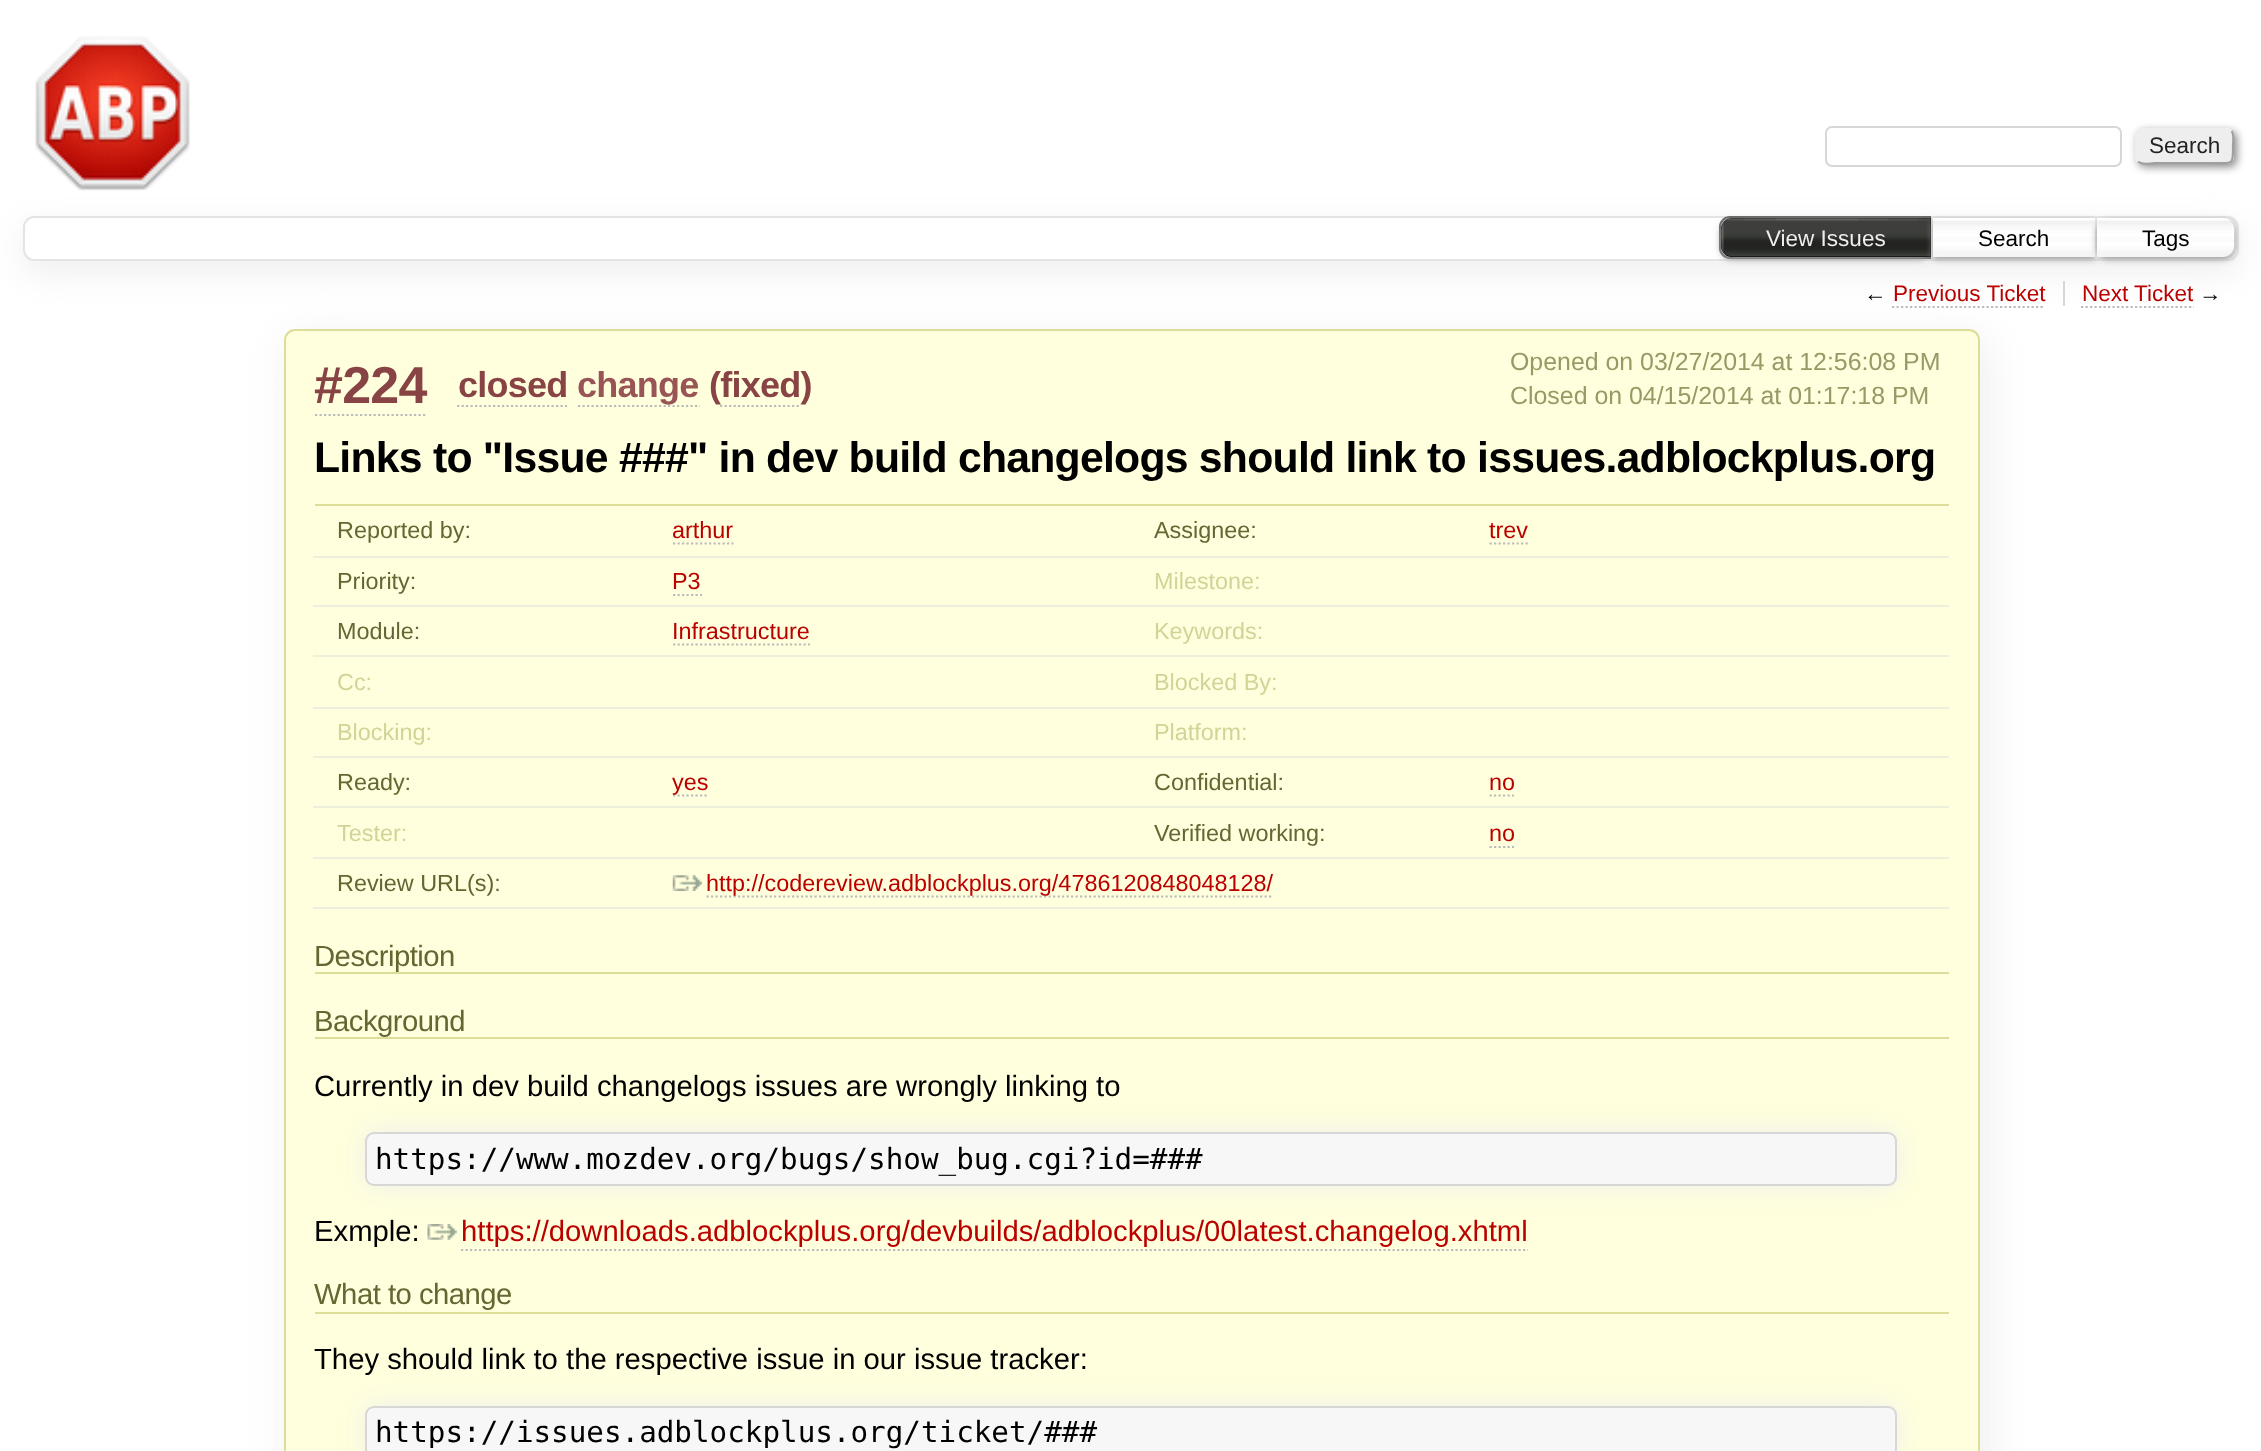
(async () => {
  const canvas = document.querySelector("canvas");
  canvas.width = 2261;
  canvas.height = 1451;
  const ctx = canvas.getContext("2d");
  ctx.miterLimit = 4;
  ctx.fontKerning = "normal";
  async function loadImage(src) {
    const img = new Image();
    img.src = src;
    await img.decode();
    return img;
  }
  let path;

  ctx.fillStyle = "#ffffff";
  ctx.fillRect(0, 0, 2261, 1451);
  ctx.save();
  path = new Path2D("M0 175H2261V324H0ZM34 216H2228C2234 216 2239 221 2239 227V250C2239 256 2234 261 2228 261H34C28 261 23 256 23 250V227C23 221 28 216 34 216Z");
  ctx.clip(path, "evenodd");
  ctx.fillStyle = "#eeeeee";
  ctx.filter = "blur(17px)";
  ctx.beginPath();
  ctx.roundRect(23, 227, 2216, 45, 11);
  ctx.fill();
  ctx.filter = "none";
  ctx.restore();
  ctx.drawImage(await loadImage("img/1.png"), 35, 36, 155, 155);
  ctx.beginPath();
  ctx.roundRect(1826, 127, 295, 39, 6);
  ctx.strokeStyle = "#d7d7d7";
  ctx.lineWidth = 2;
  ctx.stroke();
  ctx.fillStyle = "#888888";
  ctx.filter = "blur(4.5px)";
  ctx.beginPath();
  ctx.roundRect(2138, 131, 99, 36, 7);
  ctx.fill();
  ctx.filter = "none";
  ctx.fillStyle = "#eeeeee";
  ctx.beginPath();
  ctx.roundRect(2135, 128, 99, 36, 7);
  ctx.fill();
  path = new Path2D("M2231.5 131C2234.5 134 2233 142.5 2233 146C2233 165.5 2234 163 2213 163H2156C2155 163 2142 165.5 2138 161.5");
  ctx.strokeStyle = "#9f9f9f";
  ctx.lineWidth = 2.2;
  ctx.stroke(path);
  path = new Path2D("M2138 161.5C2135 158.5 2136.5 150 2136.5 146C2136.5 127 2135.5 129.5 2156 129.5H2213C2214.5 129.5 2227.5 127 2231.5 131");
  ctx.strokeStyle = "#eeeeee";
  ctx.stroke(path);
  ctx.beginPath();
  ctx.roundRect(24, 217, 2214, 43, 10);
  ctx.strokeStyle = "#e4e4e4";
  ctx.lineWidth = 2;
  ctx.stroke();
  ctx.fillStyle = "#ffffff";
  ctx.beginPath();
  ctx.roundRect(1719, 216, 214, 43, [11, 0, 0, 11]);
  ctx.fill();
  ctx.drawImage(await loadImage("img/2.png"), 1719, 220, 13, 38);
  ctx.beginPath();
  ctx.roundRect(1720, 217, 212, 41, [10, 0, 0, 10]);
  ctx.strokeStyle = "#666666";
  ctx.stroke();
  ctx.fillStyle = "#999999";
  ctx.filter = "blur(3.5px)";
  ctx.beginPath();
  ctx.roundRect(1721, 221, 210, 38, 11);
  ctx.fill();
  ctx.filter = "none";
  ctx.fillStyle = "#000000";
  ctx.beginPath();
  ctx.roundRect(1721, 218, 210, 39, [11, 0, 0, 11]);
  ctx.fill();
  ctx.drawImage(await loadImage("img/3.png"), 1721, 218, 210, 39);
  ctx.fillStyle = "#ffffff";
  ctx.fillRect(1933, 221, 5, 36);
  ctx.drawImage(await loadImage("img/4.png"), 1930, 220, 165, 37);
  ctx.strokeStyle = "#e4e4e4";
  ctx.strokeRect(1932, 217, 164, 41);
  ctx.save();
  path = new Path2D("M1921 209H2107V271H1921ZM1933 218H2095V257H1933Z");
  ctx.clip(path, "evenodd");
  ctx.fillStyle = "#999999";
  ctx.filter = "blur(3.5px)";
  ctx.beginPath();
  ctx.rect(1933, 221, 162, 38);
  ctx.fill();
  ctx.filter = "none";
  ctx.restore();
  ctx.beginPath();
  ctx.roundRect(2095, 216, 142, 43, [0, 11, 11, 0]);
  ctx.fill();
  ctx.drawImage(await loadImage("img/5.png"), 2097, 220, 138, 37);
  ctx.beginPath();
  ctx.roundRect(2096, 217, 140, 41, [0, 10, 10, 0]);
  ctx.stroke();
  ctx.save();
  path = new Path2D("M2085 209H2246V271H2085ZM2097 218H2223C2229 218 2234 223 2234 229V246C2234 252 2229 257 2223 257H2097Z");
  ctx.clip(path, "evenodd");
  ctx.fillStyle = "#999999";
  ctx.filter = "blur(3.5px)";
  ctx.beginPath();
  ctx.roundRect(2097, 221, 137, 38, 11);
  ctx.fill();
  ctx.filter = "none";
  ctx.restore();
  ctx.fillStyle = "#d7d7d7";
  ctx.fillRect(2063, 281, 2, 25);
  path = new Path2D("M1892 307H2045");
  ctx.strokeStyle = "#bbbbbb";
  ctx.lineWidth = 2.2;
  ctx.setLineDash([2.25, 2.25]);
  ctx.stroke(path);
  path = new Path2D("M2081 307H2194");
  ctx.stroke(path);
  ctx.fillStyle = "#eeeeee";
  ctx.filter = "blur(22px)";
  ctx.beginPath();
  ctx.roundRect(290, 338, 1697, 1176, 11);
  ctx.fill();
  ctx.filter = "none";
  ctx.fillStyle = "#ffffdd";
  ctx.beginPath();
  ctx.roundRect(285, 330, 1694, 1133, 10);
  ctx.fill();
  ctx.strokeStyle = "#dddd99";
  ctx.lineWidth = 2;
  ctx.setLineDash([]);
  ctx.stroke();
  path = new Path2D("M315 415H427.5");
  ctx.strokeStyle = "#bbbbbb";
  ctx.lineWidth = 2.2;
  ctx.setLineDash([2.25, 2.25]);
  ctx.stroke(path);
  path = new Path2D("M457 406H567");
  ctx.stroke(path);
  path = new Path2D("M578 406H700");
  ctx.stroke(path);
  ctx.fillStyle = "#dddd99";
  ctx.fillRect(315, 504, 1634, 2);
  ctx.fillStyle = "#eeeedd";
  ctx.fillRect(313, 556, 1636, 2);
  path = new Path2D("M673 543.5H733.5");
  ctx.stroke(path);
  path = new Path2D("M1489.5 543.5H1528");
  ctx.stroke(path);
  ctx.fillRect(313, 605, 1636, 2);
  path = new Path2D("M673 595H702");
  ctx.stroke(path);
  ctx.fillRect(313, 655, 1636, 2);
  path = new Path2D("M673 644.5H810");
  ctx.stroke(path);
  for (const [x, y, w, h, color] of [
    [313, 707, 1636, 2, "#eeeedd"],
    [313, 756, 1636, 2, "#eeeedd"],
    [313, 806, 1636, 2, "#eeeedd"],
  ]) {
    ctx.fillStyle = color;
    ctx.fillRect(x, y, w, h);
  }
  path = new Path2D("M673 795.5H709");
  ctx.stroke(path);
  path = new Path2D("M1489.5 795.5H1514");
  ctx.stroke(path);
  ctx.fillRect(313, 857, 1636, 2);
  path = new Path2D("M1489.5 847H1514");
  ctx.stroke(path);
  ctx.fillRect(313, 907, 1636, 2);
  ctx.drawImage(await loadImage("img/6.png"), 672, 875, 30, 16);
  path = new Path2D("M706.5 896.5H1273.5");
  ctx.stroke(path);
  ctx.fillStyle = "#dddd99";
  ctx.fillRect(315, 972, 1634, 2);
  ctx.fillRect(315, 1037, 1634, 2);
  ctx.drawImage(await loadImage("img/7.png"), 427, 1224, 30, 16);
  ctx.fillStyle = "#eeeeee";
  ctx.filter = "blur(14.5px)";
  ctx.beginPath();
  ctx.roundRect(365, 1132, 1532, 54, 9);
  ctx.fill();
  ctx.filter = "none";
  ctx.fillStyle = "#f7f7f7";
  ctx.beginPath();
  ctx.roundRect(366, 1133, 1530, 52, 8);
  ctx.fill();
  ctx.strokeStyle = "#d7d7d7";
  ctx.lineWidth = 2;
  ctx.setLineDash([]);
  ctx.stroke();
  path = new Path2D("M461 1250H1528");
  ctx.strokeStyle = "#bbbbbb";
  ctx.lineWidth = 2.2;
  ctx.setLineDash([2.25, 2.25]);
  ctx.stroke(path);
  ctx.fillStyle = "#dddd99";
  ctx.fillRect(315, 1312, 1634, 2);
  ctx.fillStyle = "#eeeeee";
  ctx.filter = "blur(14.5px)";
  ctx.beginPath();
  ctx.roundRect(365, 1406, 1532, 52, 9);
  ctx.fill();
  ctx.filter = "none";
  ctx.fillStyle = "#f7f7f7";
  ctx.beginPath();
  ctx.roundRect(366, 1407, 1530, 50, 8);
  ctx.fill();
  ctx.strokeStyle = "#d7d7d7";
  ctx.lineWidth = 2;
  ctx.setLineDash([]);
  ctx.stroke();
  ctx.font = "22.5px Liberation Sans";
  ctx.fillStyle = "#222222";
  ctx.fillText("Search", 2149, 153);
  ctx.fillStyle = "#eeeeee";
  ctx.fillText("View Issues", 1766, 246);
  ctx.fillStyle = "#000000";
  for (const [text, x, y] of [
    ["Search", 1978, 246],
    ["Tags", 2142, 246],
    ["←", 1864, 301],
  ]) {
    ctx.fillText(text, x, y);
  }
  ctx.fillStyle = "#bb0000";
  ctx.fillText("Previous Ticket", 1893, 301);
  ctx.fillText("Next Ticket", 2082, 301);
  ctx.fillStyle = "#000000";
  ctx.fillText("→", 2199, 301);
  ctx.letterSpacing = "-0.75px";
  ctx.font = "bold 52px Liberation Sans";
  ctx.fillStyle = "#884444";
  ctx.fillText("#224", 314, 403);
  ctx.font = "bold 36px Liberation Sans";
  ctx.fillText("closed", 458, 397);
  ctx.fillStyle = "#995555";
  ctx.fillText("change", 577, 397);
  ctx.fillStyle = "#884444";
  ctx.fillText("(fixed)", 709, 397);
  path = new Path2D("M720 406H801");
  ctx.strokeStyle = "#bbbbbb";
  ctx.lineWidth = 2.2;
  ctx.setLineDash([2.25, 2.25]);
  ctx.stroke(path);
  ctx.letterSpacing = "0px";
  ctx.font = "24.9px Liberation Sans";
  ctx.fillStyle = "#999966";
  ctx.fillText("Opened on 03/27/2014 at 12:56:08 PM", 1510, 370);
  ctx.fillText("Closed on 04/15/2014 at 01:17:18 PM", 1510, 404);
  ctx.letterSpacing = "-0.77px";
  ctx.font = "bold 42.75px Liberation Sans";
  ctx.fillStyle = "#000000";
  ctx.fillText("Links to \"Issue ###\" in dev build changelogs should link to issues.adblockplus.org", 314, 472);
  ctx.letterSpacing = "0px";
  ctx.font = "23.4px Liberation Sans";
  ctx.fillStyle = "#666633";
  ctx.fillText("Reported by:", 337, 538);
  ctx.fillStyle = "#bb0000";
  ctx.fillText("arthur", 672, 538);
  ctx.fillStyle = "#666633";
  ctx.fillText("Assignee:", 1154, 538);
  ctx.fillStyle = "#bb0000";
  ctx.fillText("trev", 1489, 538);
  ctx.fillStyle = "#666633";
  ctx.fillText("Priority:", 337, 589);
  ctx.fillStyle = "#bb0000";
  ctx.fillText("P3", 672, 589);
  ctx.fillStyle = "#d3d398";
  ctx.fillText("Milestone:", 1154, 589);
  ctx.fillStyle = "#666633";
  ctx.fillText("Module:", 337, 639);
  ctx.fillStyle = "#bb0000";
  ctx.fillText("Infrastructure", 672, 639);
  ctx.fillStyle = "#d3d398";
  for (const [text, x, y] of [
    ["Keywords:", 1154, 639],
    ["Cc:", 337, 690],
    ["Blocked By:", 1154, 690],
    ["Blocking:", 337, 740],
    ["Platform:", 1154, 740],
  ]) {
    ctx.fillText(text, x, y);
  }
  ctx.fillStyle = "#666633";
  ctx.fillText("Ready:", 337, 790);
  ctx.fillStyle = "#bb0000";
  ctx.fillText("yes", 672, 790);
  ctx.fillStyle = "#666633";
  ctx.fillText("Confidential:", 1154, 790);
  ctx.fillStyle = "#bb0000";
  ctx.fillText("no", 1489, 790);
  ctx.fillStyle = "#d3d398";
  ctx.fillText("Tester:", 337, 841);
  ctx.fillStyle = "#666633";
  ctx.fillText("Verified working:", 1154, 841);
  ctx.fillStyle = "#bb0000";
  ctx.fillText("no", 1489, 841);
  ctx.fillStyle = "#666633";
  ctx.fillText("Review URL(s):", 337, 891);
  ctx.fillStyle = "#bb0000";
  ctx.fillText("http://codereview.adblockplus.org/4786120848048128/", 706, 891);
  ctx.letterSpacing = "-0.5px";
  ctx.font = "29.25px Liberation Sans";
  ctx.fillStyle = "#666633";
  ctx.fillText("Description", 314, 966);
  ctx.fillText("Background", 314, 1031);
  ctx.letterSpacing = "0px";
  ctx.fillStyle = "#000000";
  ctx.fillText("Currently in dev build changelogs issues are wrongly linking to", 314, 1096);
  ctx.font = "29.25px DejaVu Sans Mono";
  ctx.fillText("https://www.mozdev.org/bugs/show_bug.cgi?id=###", 375, 1169);
  ctx.font = "29.25px Liberation Sans";
  ctx.fillText("Exmple:", 314, 1241);
  ctx.fillStyle = "#bb0000";
  ctx.fillText("https://downloads.adblockplus.org/devbuilds/adblockplus/00latest.changelog.xhtml", 461, 1241);
  ctx.letterSpacing = "-0.5px";
  ctx.fillStyle = "#666633";
  ctx.fillText("What to change", 314, 1304);
  ctx.letterSpacing = "0px";
  ctx.fillStyle = "#000000";
  ctx.fillText("They should link to the respective issue in our issue tracker:", 314, 1369);
  ctx.font = "29.25px DejaVu Sans Mono";
  ctx.fillText("https://issues.adblockplus.org/ticket/###", 375, 1442);
})();
